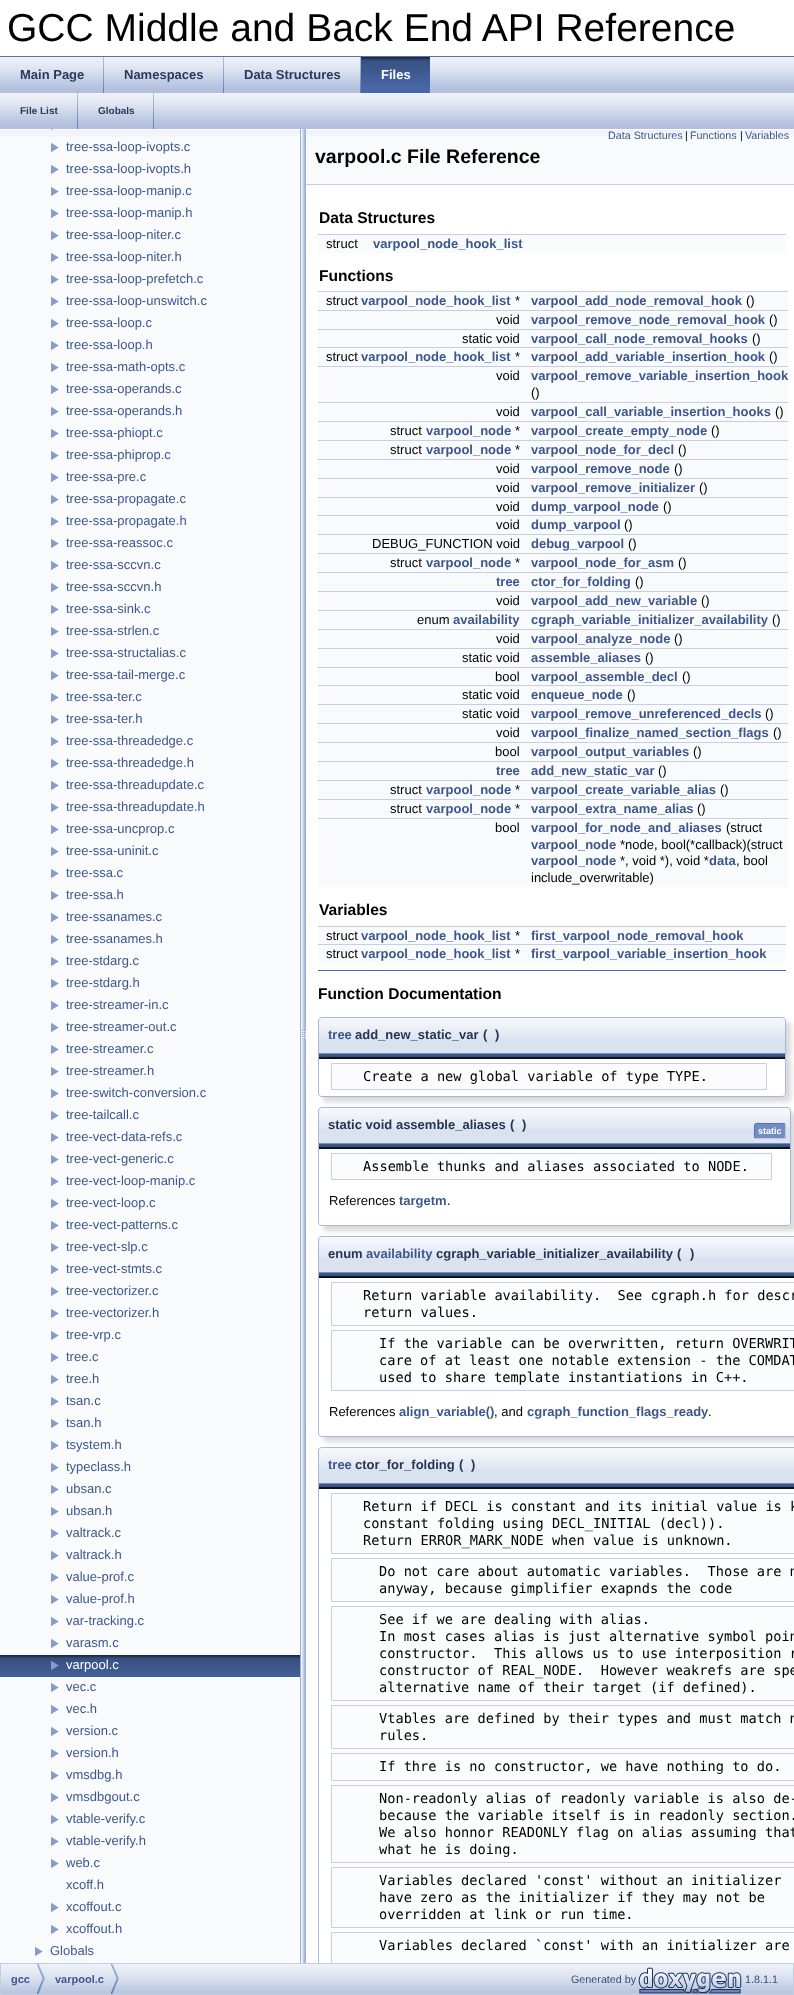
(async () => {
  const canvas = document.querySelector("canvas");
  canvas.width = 794;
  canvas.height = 1995;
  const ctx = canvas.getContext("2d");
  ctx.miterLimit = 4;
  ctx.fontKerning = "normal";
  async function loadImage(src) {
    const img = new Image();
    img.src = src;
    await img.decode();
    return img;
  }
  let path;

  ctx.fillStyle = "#ffffff";
  ctx.fillRect(0, 0, 794, 1995);
  ctx.fillStyle = "#5373b4";
  ctx.fillRect(0, 56, 794, 1);
  ctx.drawImage(await loadImage("img/1.png"), 0, 57, 794, 36);
  ctx.drawImage(await loadImage("img/2.png"), 103, 57, 1, 36);
  ctx.drawImage(await loadImage("img/2.png"), 223, 57, 1, 36);
  ctx.drawImage(await loadImage("img/2.png"), 360, 57, 1, 36);
  ctx.drawImage(await loadImage("img/3.png"), 361, 57, 69, 36);
  ctx.drawImage(await loadImage("img/1.png"), 0, 93, 794, 36);
  ctx.drawImage(await loadImage("img/2.png"), 77, 93, 1, 36);
  ctx.drawImage(await loadImage("img/2.png"), 153, 93, 1, 36);
  ctx.fillStyle = "#f9fafc";
  ctx.fillRect(0, 137, 300, 1826);
  ctx.drawImage(await loadImage("img/4.png"), 0, 129, 300, 8);
  ctx.drawImage(await loadImage("img/5.png"), 51, 129, 2, 1);
  ctx.drawImage(await loadImage("img/6.png"), 51, 143, 8, 9);
  ctx.drawImage(await loadImage("img/6.png"), 51, 165, 8, 9);
  ctx.drawImage(await loadImage("img/6.png"), 51, 187, 8, 9);
  ctx.drawImage(await loadImage("img/6.png"), 51, 209, 8, 9);
  ctx.drawImage(await loadImage("img/6.png"), 51, 231, 8, 9);
  ctx.drawImage(await loadImage("img/6.png"), 51, 253, 8, 9);
  ctx.drawImage(await loadImage("img/6.png"), 51, 275, 8, 9);
  ctx.drawImage(await loadImage("img/6.png"), 51, 297, 8, 9);
  ctx.drawImage(await loadImage("img/6.png"), 51, 319, 8, 9);
  ctx.drawImage(await loadImage("img/6.png"), 51, 341, 8, 9);
  ctx.drawImage(await loadImage("img/6.png"), 51, 363, 8, 9);
  ctx.drawImage(await loadImage("img/6.png"), 51, 385, 8, 9);
  ctx.drawImage(await loadImage("img/6.png"), 51, 407, 8, 9);
  ctx.drawImage(await loadImage("img/6.png"), 51, 429, 8, 9);
  ctx.drawImage(await loadImage("img/6.png"), 51, 451, 8, 9);
  ctx.drawImage(await loadImage("img/6.png"), 51, 473, 8, 9);
  ctx.drawImage(await loadImage("img/6.png"), 51, 495, 8, 9);
  ctx.drawImage(await loadImage("img/6.png"), 51, 517, 8, 9);
  ctx.drawImage(await loadImage("img/6.png"), 51, 539, 8, 9);
  ctx.drawImage(await loadImage("img/6.png"), 51, 561, 8, 9);
  ctx.drawImage(await loadImage("img/6.png"), 51, 583, 8, 9);
  ctx.drawImage(await loadImage("img/6.png"), 51, 605, 8, 9);
  ctx.drawImage(await loadImage("img/6.png"), 51, 627, 8, 9);
  ctx.drawImage(await loadImage("img/6.png"), 51, 649, 8, 9);
  ctx.drawImage(await loadImage("img/6.png"), 51, 671, 8, 9);
  ctx.drawImage(await loadImage("img/6.png"), 51, 693, 8, 9);
  ctx.drawImage(await loadImage("img/6.png"), 51, 715, 8, 9);
  ctx.drawImage(await loadImage("img/6.png"), 51, 737, 8, 9);
  ctx.drawImage(await loadImage("img/6.png"), 51, 759, 8, 9);
  ctx.drawImage(await loadImage("img/6.png"), 51, 781, 8, 9);
  ctx.drawImage(await loadImage("img/6.png"), 51, 803, 8, 9);
  ctx.drawImage(await loadImage("img/6.png"), 51, 825, 8, 9);
  ctx.drawImage(await loadImage("img/6.png"), 51, 847, 8, 9);
  ctx.drawImage(await loadImage("img/6.png"), 51, 869, 8, 9);
  ctx.drawImage(await loadImage("img/6.png"), 51, 891, 8, 9);
  ctx.drawImage(await loadImage("img/6.png"), 51, 913, 8, 9);
  ctx.drawImage(await loadImage("img/6.png"), 51, 935, 8, 9);
  ctx.drawImage(await loadImage("img/6.png"), 51, 957, 8, 9);
  ctx.drawImage(await loadImage("img/6.png"), 51, 979, 8, 9);
  ctx.drawImage(await loadImage("img/6.png"), 51, 1001, 8, 9);
  ctx.drawImage(await loadImage("img/6.png"), 51, 1023, 8, 9);
  ctx.drawImage(await loadImage("img/6.png"), 51, 1045, 8, 9);
  ctx.drawImage(await loadImage("img/6.png"), 51, 1067, 8, 9);
  ctx.drawImage(await loadImage("img/6.png"), 51, 1089, 8, 9);
  ctx.drawImage(await loadImage("img/6.png"), 51, 1111, 8, 9);
  ctx.drawImage(await loadImage("img/6.png"), 51, 1133, 8, 9);
  ctx.drawImage(await loadImage("img/6.png"), 51, 1155, 8, 9);
  ctx.drawImage(await loadImage("img/6.png"), 51, 1177, 8, 9);
  ctx.drawImage(await loadImage("img/6.png"), 51, 1199, 8, 9);
  ctx.drawImage(await loadImage("img/6.png"), 51, 1221, 8, 9);
  ctx.drawImage(await loadImage("img/6.png"), 51, 1243, 8, 9);
  ctx.drawImage(await loadImage("img/6.png"), 51, 1265, 8, 9);
  ctx.drawImage(await loadImage("img/6.png"), 51, 1287, 8, 9);
  ctx.drawImage(await loadImage("img/6.png"), 51, 1309, 8, 9);
  ctx.drawImage(await loadImage("img/6.png"), 51, 1331, 8, 9);
  ctx.drawImage(await loadImage("img/6.png"), 51, 1353, 8, 9);
  ctx.drawImage(await loadImage("img/6.png"), 51, 1375, 8, 9);
  ctx.drawImage(await loadImage("img/6.png"), 51, 1397, 8, 9);
  ctx.drawImage(await loadImage("img/6.png"), 51, 1419, 8, 9);
  ctx.drawImage(await loadImage("img/6.png"), 51, 1441, 8, 9);
  ctx.drawImage(await loadImage("img/6.png"), 51, 1463, 8, 9);
  ctx.drawImage(await loadImage("img/6.png"), 51, 1485, 8, 9);
  ctx.drawImage(await loadImage("img/6.png"), 51, 1507, 8, 9);
  ctx.drawImage(await loadImage("img/6.png"), 51, 1529, 8, 9);
  ctx.drawImage(await loadImage("img/6.png"), 51, 1551, 8, 9);
  ctx.drawImage(await loadImage("img/6.png"), 51, 1573, 8, 9);
  ctx.drawImage(await loadImage("img/6.png"), 51, 1595, 8, 9);
  ctx.drawImage(await loadImage("img/6.png"), 51, 1617, 8, 9);
  ctx.drawImage(await loadImage("img/6.png"), 51, 1639, 8, 9);
  ctx.drawImage(await loadImage("img/7.png"), 0, 1655, 300, 22);
  ctx.drawImage(await loadImage("img/8.png"), 51, 1661, 8, 9);
  ctx.drawImage(await loadImage("img/6.png"), 51, 1683, 8, 9);
  ctx.drawImage(await loadImage("img/6.png"), 51, 1705, 8, 9);
  ctx.drawImage(await loadImage("img/6.png"), 51, 1727, 8, 9);
  ctx.drawImage(await loadImage("img/6.png"), 51, 1749, 8, 9);
  ctx.drawImage(await loadImage("img/6.png"), 51, 1771, 8, 9);
  ctx.drawImage(await loadImage("img/6.png"), 51, 1793, 8, 9);
  ctx.drawImage(await loadImage("img/6.png"), 51, 1815, 8, 9);
  ctx.drawImage(await loadImage("img/6.png"), 51, 1837, 8, 9);
  ctx.drawImage(await loadImage("img/6.png"), 51, 1859, 8, 9);
  ctx.drawImage(await loadImage("img/6.png"), 51, 1903, 8, 9);
  ctx.drawImage(await loadImage("img/6.png"), 51, 1925, 8, 9);
  ctx.drawImage(await loadImage("img/6.png"), 35, 1947, 8, 9);
  ctx.drawImage(await loadImage("img/9.png"), 300, 129, 6, 1834);
  ctx.fillRect(306, 137, 488, 47);
  ctx.drawImage(await loadImage("img/10.png"), 306, 129, 488, 8);
  for (const [x, y, w, h, color] of [
    [306, 184, 488, 1, "#c4cfe5"],
    [318, 235, 468, 18, "#f9fafc"],
    [318, 234, 468, 1, "#c4cfe5"],
    [318, 292, 470, 18, "#f9fafc"],
    [318, 291, 470, 1, "#c4cfe5"],
    [318, 311, 470, 18, "#f9fafc"],
    [318, 310, 470, 1, "#c4cfe5"],
    [318, 330, 470, 17, "#f9fafc"],
    [318, 329, 470, 1, "#c4cfe5"],
    [318, 348, 470, 18, "#f9fafc"],
    [318, 347, 470, 1, "#c4cfe5"],
    [318, 367, 470, 35, "#f9fafc"],
    [318, 366, 470, 1, "#c4cfe5"],
    [318, 403, 470, 18, "#f9fafc"],
    [318, 402, 470, 1, "#c4cfe5"],
    [318, 422, 470, 18, "#f9fafc"],
    [318, 421, 470, 1, "#c4cfe5"],
    [318, 441, 470, 18, "#f9fafc"],
    [318, 440, 470, 1, "#c4cfe5"],
    [318, 460, 470, 18, "#f9fafc"],
    [318, 459, 470, 1, "#c4cfe5"],
    [318, 479, 470, 18, "#f9fafc"],
    [318, 478, 470, 1, "#c4cfe5"],
    [318, 498, 470, 17, "#f9fafc"],
    [318, 497, 470, 1, "#c4cfe5"],
    [318, 516, 470, 18, "#f9fafc"],
    [318, 515, 470, 1, "#c4cfe5"],
    [318, 535, 470, 18, "#f9fafc"],
    [318, 534, 470, 1, "#c4cfe5"],
    [318, 554, 470, 18, "#f9fafc"],
    [318, 553, 470, 1, "#c4cfe5"],
    [318, 573, 470, 18, "#f9fafc"],
    [318, 572, 470, 1, "#c4cfe5"],
    [318, 592, 470, 18, "#f9fafc"],
    [318, 591, 470, 1, "#c4cfe5"],
    [318, 611, 470, 18, "#f9fafc"],
    [318, 610, 470, 1, "#c4cfe5"],
    [318, 630, 470, 18, "#f9fafc"],
    [318, 629, 470, 1, "#c4cfe5"],
    [318, 649, 470, 18, "#f9fafc"],
    [318, 648, 470, 1, "#c4cfe5"],
    [318, 668, 470, 17, "#f9fafc"],
    [318, 667, 470, 1, "#c4cfe5"],
    [318, 686, 470, 18, "#f9fafc"],
    [318, 685, 470, 1, "#c4cfe5"],
    [318, 705, 470, 18, "#f9fafc"],
    [318, 704, 470, 1, "#c4cfe5"],
    [318, 724, 470, 18, "#f9fafc"],
    [318, 723, 470, 1, "#c4cfe5"],
    [318, 743, 470, 18, "#f9fafc"],
    [318, 742, 470, 1, "#c4cfe5"],
    [318, 762, 470, 18, "#f9fafc"],
    [318, 761, 470, 1, "#c4cfe5"],
    [318, 781, 470, 18, "#f9fafc"],
    [318, 780, 470, 1, "#c4cfe5"],
    [318, 800, 470, 18, "#f9fafc"],
    [318, 799, 470, 1, "#c4cfe5"],
    [318, 819, 470, 68, "#f9fafc"],
    [318, 818, 470, 1, "#c4cfe5"],
    [318, 927, 468, 17, "#f9fafc"],
    [318, 926, 468, 1, "#c4cfe5"],
    [318, 945, 468, 18, "#f9fafc"],
    [318, 944, 468, 1, "#c4cfe5"],
    [318, 970, 468, 1, "#4a6aaa"],
  ]) {
    ctx.fillStyle = color;
    ctx.fillRect(x, y, w, h);
  }
  ctx.fillStyle = "rgba(0, 0, 0, 0.15)";
  ctx.filter = "blur(2.5px)";
  ctx.beginPath();
  ctx.roundRect(323, 1022, 468, 36, 4);
  ctx.fill();
  ctx.filter = "none";
  ctx.drawImage(await loadImage("img/11.png"), 318, 1018, 468, 35);
  ctx.fillStyle = "#a8b8d9";
  path = new Path2D("M322 1017H782C784 1017 786 1019 786 1021V1053H318V1021C318 1019 320 1017 322 1017ZM322 1018H782C784 1018 785 1019 785 1021V1053H319V1021C319 1019 320 1018 322 1018Z");
  ctx.fill(path, "evenodd");
  ctx.fillStyle = "rgba(0, 0, 0, 0.15)";
  ctx.filter = "blur(2.5px)";
  ctx.beginPath();
  ctx.roundRect(323, 1058, 468, 44, 4);
  ctx.fill();
  ctx.filter = "none";
  ctx.fillStyle = "#ffffff";
  ctx.beginPath();
  ctx.roundRect(318, 1053, 468, 44, [0, 0, 4, 4]);
  ctx.fill();
  ctx.drawImage(await loadImage("img/12.png"), 319, 1053, 466, 6);
  ctx.fillStyle = "#a8b8d9";
  path = new Path2D("M318 1053H786V1093C786 1095 784 1097 782 1097H322C320 1097 318 1095 318 1093ZM319 1053H785V1093C785 1095 784 1096 782 1096H322C320 1096 319 1095 319 1093Z");
  ctx.fill(path, "evenodd");
  ctx.fillStyle = "#fbfcfd";
  ctx.beginPath();
  ctx.rect(331.5, 1063.5, 435, 26);
  ctx.fill();
  ctx.strokeStyle = "#c4cfe5";
  ctx.stroke();
  ctx.fillStyle = "rgba(0, 0, 0, 0.15)";
  ctx.filter = "blur(2.5px)";
  ctx.beginPath();
  ctx.roundRect(323, 1112, 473, 36, 4);
  ctx.fill();
  ctx.filter = "none";
  ctx.drawImage(await loadImage("img/13.png"), 318, 1108, 473, 35);
  ctx.fillStyle = "#a8b8d9";
  path = new Path2D("M322 1107H787C789 1107 791 1109 791 1111V1143H318V1111C318 1109 320 1107 322 1107ZM322 1108H787C789 1108 790 1109 790 1111V1143H319V1111C319 1109 320 1108 322 1108Z");
  ctx.fill(path, "evenodd");
  ctx.fillStyle = "#728dc1";
  ctx.beginPath();
  ctx.roundRect(754, 1123, 32, 16, 3);
  ctx.fill();
  ctx.fillStyle = "rgba(0, 0, 0, 0.15)";
  ctx.filter = "blur(2.5px)";
  ctx.beginPath();
  ctx.roundRect(323, 1148, 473, 83, 4);
  ctx.fill();
  ctx.filter = "none";
  path = new Path2D("M785 1124C786 1125.5 785.5 1129.5 785.5 1131C785.5 1140.5 785.5 1138.5 774.5 1138.5H761.5C760 1138.5 756.5 1139 755 1138");
  ctx.stroke(path);
  path = new Path2D("M755 1138C754 1136.5 754.5 1132.5 754.5 1131C754.5 1121.5 754.5 1123.5 765.5 1123.5H778.5C780 1123.5 783.5 1123 785 1124");
  ctx.strokeStyle = "#5373b4";
  ctx.stroke(path);
  ctx.fillStyle = "#ffffff";
  ctx.beginPath();
  ctx.roundRect(318, 1143, 473, 83, [0, 0, 4, 4]);
  ctx.fill();
  ctx.drawImage(await loadImage("img/14.png"), 319, 1143, 471, 6);
  ctx.fillStyle = "#a8b8d9";
  path = new Path2D("M318 1143H791V1222C791 1224 789 1226 787 1226H322C320 1226 318 1224 318 1222ZM319 1143H790V1222C790 1224 789 1225 787 1225H322C320 1225 319 1224 319 1222Z");
  ctx.fill(path, "evenodd");
  ctx.fillStyle = "#fbfcfd";
  ctx.beginPath();
  ctx.rect(331.5, 1153.5, 440, 26);
  ctx.fill();
  ctx.strokeStyle = "#c4cfe5";
  ctx.stroke();
  ctx.drawImage(await loadImage("img/15.png"), 318, 1237, 476, 35);
  ctx.fillStyle = "#a8b8d9";
  path = new Path2D("M322 1236H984C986 1236 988 1238 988 1240V1272H318V1240C318 1238 320 1236 322 1236ZM322 1237H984C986 1237 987 1238 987 1240V1272H319V1240C319 1238 320 1237 322 1237Z");
  ctx.fill(path, "evenodd");
  ctx.fillStyle = "rgba(0, 0, 0, 0.15)";
  ctx.filter = "blur(2.5px)";
  ctx.beginPath();
  ctx.roundRect(323, 1277, 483, 165, 4);
  ctx.fill();
  ctx.filter = "none";
  ctx.fillStyle = "#ffffff";
  ctx.beginPath();
  ctx.roundRect(318, 1272, 476, 165, [0, 0, 0, 4]);
  ctx.fill();
  ctx.drawImage(await loadImage("img/16.png"), 319, 1272, 475, 6);
  ctx.fillStyle = "#a8b8d9";
  path = new Path2D("M318 1272H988V1433C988 1435 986 1437 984 1437H322C320 1437 318 1435 318 1433ZM319 1272H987V1433C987 1435 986 1436 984 1436H322C320 1436 319 1435 319 1433Z");
  ctx.fill(path, "evenodd");
  ctx.fillStyle = "#fbfcfd";
  ctx.beginPath();
  ctx.rect(331.5, 1282.5, 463, 43);
  ctx.fill();
  ctx.stroke();
  ctx.beginPath();
  ctx.rect(331.5, 1330.5, 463, 60);
  ctx.fill();
  ctx.stroke();
  ctx.drawImage(await loadImage("img/15.png"), 318, 1448, 476, 35);
  ctx.fillStyle = "#a8b8d9";
  path = new Path2D("M322 1447H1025C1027 1447 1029 1449 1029 1451V1483H318V1451C318 1449 320 1447 322 1447ZM322 1448H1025C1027 1448 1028 1449 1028 1451V1483H319V1451C319 1449 320 1448 322 1448Z");
  ctx.fill(path, "evenodd");
  ctx.drawImage(await loadImage("img/16.png"), 319, 1483, 475, 6);
  path = new Path2D("M318 1483H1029V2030C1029 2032 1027 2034 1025 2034H322C320 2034 318 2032 318 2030ZM319 1483H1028V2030C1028 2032 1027 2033 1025 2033H322C320 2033 319 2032 319 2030Z");
  ctx.fill(path, "evenodd");
  ctx.fillStyle = "#fbfcfd";
  ctx.beginPath();
  ctx.rect(331.5, 1493.5, 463, 60);
  ctx.fill();
  ctx.stroke();
  ctx.beginPath();
  ctx.rect(331.5, 1558.5, 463, 43);
  ctx.fill();
  ctx.stroke();
  ctx.beginPath();
  ctx.rect(331.5, 1606.5, 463, 94);
  ctx.fill();
  ctx.stroke();
  ctx.beginPath();
  ctx.rect(331.5, 1705.5, 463, 43);
  ctx.fill();
  ctx.stroke();
  ctx.beginPath();
  ctx.rect(331.5, 1753.5, 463, 27);
  ctx.fill();
  ctx.stroke();
  ctx.beginPath();
  ctx.rect(331.5, 1785.5, 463, 77);
  ctx.fill();
  ctx.stroke();
  ctx.beginPath();
  ctx.rect(331.5, 1867.5, 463, 60);
  ctx.fill();
  ctx.stroke();
  ctx.fillRect(332, 1933, 462, 30);
  ctx.strokeRect(331.5, 1932.5, 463, 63);
  ctx.drawImage(await loadImage("img/17.png"), 1, 1964, 792, 30);
  ctx.strokeStyle = "#c2cde4";
  ctx.strokeRect(0.5, 1963.5, 793, 31);
  ctx.drawImage(await loadImage("img/18.png"), 37, 1964, 8, 30);
  ctx.drawImage(await loadImage("img/18.png"), 111, 1964, 8, 30);
  ctx.drawImage(await loadImage("img/19.png"), 638, 1967, 104, 27);
  ctx.font = "39px Liberation Sans";
  ctx.fillStyle = "#000000";
  ctx.fillText("GCC Middle and Back End API Reference", 7, 41);
  ctx.font = "bold 13px Liberation Sans";
  ctx.fillStyle = "#283a5d";
  for (const [text, x, y] of [
    ["Main Page", 20, 79],
    ["Namespaces", 124, 79],
    ["Data Structures", 244, 79],
  ]) {
    ctx.fillText(text, x, y);
  }
  ctx.fillStyle = "#ffffff";
  ctx.fillText("Files", 381, 79);
  ctx.font = "bold 10px Liberation Sans";
  ctx.fillStyle = "#283a5d";
  ctx.fillText("File List", 20, 114);
  ctx.fillText("Globals", 98, 114);
  ctx.font = "13px Liberation Sans";
  ctx.fillStyle = "#3d578c";
  for (const [text, x, y] of [
    ["tree-ssa-loop-ivopts.c", 66, 151],
    ["tree-ssa-loop-ivopts.h", 66, 173],
    ["tree-ssa-loop-manip.c", 66, 195],
    ["tree-ssa-loop-manip.h", 66, 217],
    ["tree-ssa-loop-niter.c", 66, 239],
    ["tree-ssa-loop-niter.h", 66, 261],
    ["tree-ssa-loop-prefetch.c", 66, 283],
    ["tree-ssa-loop-unswitch.c", 66, 305],
    ["tree-ssa-loop.c", 66, 327],
    ["tree-ssa-loop.h", 66, 349],
    ["tree-ssa-math-opts.c", 66, 371],
    ["tree-ssa-operands.c", 66, 393],
    ["tree-ssa-operands.h", 66, 415],
    ["tree-ssa-phiopt.c", 66, 437],
    ["tree-ssa-phiprop.c", 66, 459],
    ["tree-ssa-pre.c", 66, 481],
    ["tree-ssa-propagate.c", 66, 503],
    ["tree-ssa-propagate.h", 66, 525],
    ["tree-ssa-reassoc.c", 66, 547],
    ["tree-ssa-sccvn.c", 66, 569],
    ["tree-ssa-sccvn.h", 66, 591],
    ["tree-ssa-sink.c", 66, 613],
    ["tree-ssa-strlen.c", 66, 635],
    ["tree-ssa-structalias.c", 66, 657],
    ["tree-ssa-tail-merge.c", 66, 679],
    ["tree-ssa-ter.c", 66, 701],
    ["tree-ssa-ter.h", 66, 723],
    ["tree-ssa-threadedge.c", 66, 745],
    ["tree-ssa-threadedge.h", 66, 767],
    ["tree-ssa-threadupdate.c", 66, 789],
    ["tree-ssa-threadupdate.h", 66, 811],
    ["tree-ssa-uncprop.c", 66, 833],
    ["tree-ssa-uninit.c", 66, 855],
    ["tree-ssa.c", 66, 877],
    ["tree-ssa.h", 66, 899],
    ["tree-ssanames.c", 66, 921],
    ["tree-ssanames.h", 66, 943],
    ["tree-stdarg.c", 66, 965],
    ["tree-stdarg.h", 66, 987],
    ["tree-streamer-in.c", 66, 1009],
    ["tree-streamer-out.c", 66, 1031],
    ["tree-streamer.c", 66, 1053],
    ["tree-streamer.h", 66, 1075],
    ["tree-switch-conversion.c", 66, 1097],
    ["tree-tailcall.c", 66, 1119],
    ["tree-vect-data-refs.c", 66, 1141],
    ["tree-vect-generic.c", 66, 1163],
    ["tree-vect-loop-manip.c", 66, 1185],
    ["tree-vect-loop.c", 66, 1207],
    ["tree-vect-patterns.c", 66, 1229],
    ["tree-vect-slp.c", 66, 1251],
    ["tree-vect-stmts.c", 66, 1273],
    ["tree-vectorizer.c", 66, 1295],
    ["tree-vectorizer.h", 66, 1317],
    ["tree-vrp.c", 66, 1339],
    ["tree.c", 66, 1361],
    ["tree.h", 66, 1383],
    ["tsan.c", 66, 1405],
    ["tsan.h", 66, 1427],
    ["tsystem.h", 66, 1449],
    ["typeclass.h", 66, 1471],
    ["ubsan.c", 66, 1493],
    ["ubsan.h", 66, 1515],
    ["valtrack.c", 66, 1537],
    ["valtrack.h", 66, 1559],
    ["value-prof.c", 66, 1581],
    ["value-prof.h", 66, 1603],
    ["var-tracking.c", 66, 1625],
    ["varasm.c", 66, 1647],
  ]) {
    ctx.fillText(text, x, y);
  }
  ctx.fillStyle = "#ffffff";
  ctx.fillText("varpool.c", 66, 1669);
  ctx.fillStyle = "#3d578c";
  for (const [text, x, y] of [
    ["vec.c", 66, 1691],
    ["vec.h", 66, 1713],
    ["version.c", 66, 1735],
    ["version.h", 66, 1757],
    ["vmsdbg.h", 66, 1779],
    ["vmsdbgout.c", 66, 1801],
    ["vtable-verify.c", 66, 1823],
    ["vtable-verify.h", 66, 1845],
    ["web.c", 66, 1867],
    ["xcoff.h", 66, 1889],
    ["xcoffout.c", 66, 1911],
    ["xcoffout.h", 66, 1933],
    ["Globals", 50, 1955],
  ]) {
    ctx.fillText(text, x, y);
  }
  ctx.font = "10.75px Liberation Sans";
  ctx.fillText("Data Structures", 608, 139);
  ctx.fillStyle = "#000000";
  ctx.fillText("|", 685, 139);
  ctx.fillStyle = "#3d578c";
  ctx.fillText("Functions", 690, 139);
  ctx.fillStyle = "#000000";
  ctx.fillText("|", 740, 139);
  ctx.fillStyle = "#3d578c";
  ctx.fillText("Variables", 745, 139);
  ctx.font = "bold 19.5px Liberation Sans";
  ctx.fillStyle = "#000000";
  ctx.fillText("varpool.c File Reference", 315, 163);
  ctx.font = "bold 15.6px Liberation Sans";
  ctx.fillText("Data Structures", 319, 223);
  ctx.font = "13px Liberation Sans";
  ctx.fillText("struct", 326, 248);
  ctx.font = "bold 13px Liberation Sans";
  ctx.fillStyle = "#3d578c";
  ctx.fillText("varpool_node_hook_list", 373, 248);
  ctx.font = "bold 15.6px Liberation Sans";
  ctx.fillStyle = "#000000";
  ctx.fillText("Functions", 319, 281);
  ctx.font = "13px Liberation Sans";
  ctx.fillText("struct", 326, 305);
  ctx.font = "bold 13px Liberation Sans";
  ctx.fillStyle = "#3d578c";
  ctx.fillText("varpool_node_hook_list", 361, 305);
  ctx.font = "13px Liberation Sans";
  ctx.fillStyle = "#000000";
  ctx.fillText("*", 515, 305);
  ctx.font = "bold 13px Liberation Sans";
  ctx.fillStyle = "#3d578c";
  ctx.fillText("varpool_add_node_removal_hook", 531, 305);
  ctx.font = "13px Liberation Sans";
  ctx.fillStyle = "#000000";
  ctx.fillText("()", 746, 305);
  ctx.fillText("void", 496, 324);
  ctx.font = "bold 13px Liberation Sans";
  ctx.fillStyle = "#3d578c";
  ctx.fillText("varpool_remove_node_removal_hook", 531, 324);
  ctx.font = "13px Liberation Sans";
  ctx.fillStyle = "#000000";
  ctx.fillText("()", 769, 324);
  ctx.fillText("static void", 462, 343);
  ctx.font = "bold 13px Liberation Sans";
  ctx.fillStyle = "#3d578c";
  ctx.fillText("varpool_call_node_removal_hooks", 531, 343);
  ctx.font = "13px Liberation Sans";
  ctx.fillStyle = "#000000";
  ctx.fillText("()", 752, 343);
  ctx.fillText("struct", 326, 361);
  ctx.font = "bold 13px Liberation Sans";
  ctx.fillStyle = "#3d578c";
  ctx.fillText("varpool_node_hook_list", 361, 361);
  ctx.font = "13px Liberation Sans";
  ctx.fillStyle = "#000000";
  ctx.fillText("*", 515, 361);
  ctx.font = "bold 13px Liberation Sans";
  ctx.fillStyle = "#3d578c";
  ctx.fillText("varpool_add_variable_insertion_hook", 531, 361);
  ctx.font = "13px Liberation Sans";
  ctx.fillStyle = "#000000";
  ctx.fillText("()", 769, 361);
  ctx.fillText("void", 496, 380);
  ctx.font = "bold 13px Liberation Sans";
  ctx.fillStyle = "#3d578c";
  ctx.fillText("varpool_remove_variable_insertion_hook", 531, 380);
  ctx.font = "13px Liberation Sans";
  ctx.fillStyle = "#000000";
  ctx.fillText("()", 531, 397);
  ctx.fillText("void", 496, 416);
  ctx.font = "bold 13px Liberation Sans";
  ctx.fillStyle = "#3d578c";
  ctx.fillText("varpool_call_variable_insertion_hooks", 531, 416);
  ctx.font = "13px Liberation Sans";
  ctx.fillStyle = "#000000";
  ctx.fillText("()", 775, 416);
  ctx.fillText("struct", 390, 435);
  ctx.font = "bold 13px Liberation Sans";
  ctx.fillStyle = "#3d578c";
  ctx.fillText("varpool_node", 426, 435);
  ctx.font = "13px Liberation Sans";
  ctx.fillStyle = "#000000";
  ctx.fillText("*", 515, 435);
  ctx.font = "bold 13px Liberation Sans";
  ctx.fillStyle = "#3d578c";
  ctx.fillText("varpool_create_empty_node", 531, 435);
  ctx.font = "13px Liberation Sans";
  ctx.fillStyle = "#000000";
  ctx.fillText("()", 711, 435);
  ctx.fillText("struct", 390, 454);
  ctx.font = "bold 13px Liberation Sans";
  ctx.fillStyle = "#3d578c";
  ctx.fillText("varpool_node", 426, 454);
  ctx.font = "13px Liberation Sans";
  ctx.fillStyle = "#000000";
  ctx.fillText("*", 515, 454);
  ctx.font = "bold 13px Liberation Sans";
  ctx.fillStyle = "#3d578c";
  ctx.fillText("varpool_node_for_decl", 531, 454);
  ctx.font = "13px Liberation Sans";
  ctx.fillStyle = "#000000";
  ctx.fillText("()", 678, 454);
  ctx.fillText("void", 496, 473);
  ctx.font = "bold 13px Liberation Sans";
  ctx.fillStyle = "#3d578c";
  ctx.fillText("varpool_remove_node", 531, 473);
  ctx.font = "13px Liberation Sans";
  ctx.fillStyle = "#000000";
  ctx.fillText("()", 674, 473);
  ctx.fillText("void", 496, 492);
  ctx.font = "bold 13px Liberation Sans";
  ctx.fillStyle = "#3d578c";
  ctx.fillText("varpool_remove_initializer", 531, 492);
  ctx.font = "13px Liberation Sans";
  ctx.fillStyle = "#000000";
  ctx.fillText("()", 699, 492);
  ctx.fillText("void", 496, 511);
  ctx.font = "bold 13px Liberation Sans";
  ctx.fillStyle = "#3d578c";
  ctx.fillText("dump_varpool_node", 531, 511);
  ctx.font = "13px Liberation Sans";
  ctx.fillStyle = "#000000";
  ctx.fillText("()", 663, 511);
  ctx.fillText("void", 496, 529);
  ctx.font = "bold 13px Liberation Sans";
  ctx.fillStyle = "#3d578c";
  ctx.fillText("dump_varpool", 531, 529);
  ctx.font = "13px Liberation Sans";
  ctx.fillStyle = "#000000";
  ctx.fillText("()", 624, 529);
  ctx.fillText("DEBUG_FUNCTION void", 372, 548);
  ctx.font = "bold 13px Liberation Sans";
  ctx.fillStyle = "#3d578c";
  ctx.fillText("debug_varpool", 531, 548);
  ctx.font = "13px Liberation Sans";
  ctx.fillStyle = "#000000";
  ctx.fillText("()", 628, 548);
  ctx.fillText("struct", 390, 567);
  ctx.font = "bold 13px Liberation Sans";
  ctx.fillStyle = "#3d578c";
  ctx.fillText("varpool_node", 426, 567);
  ctx.font = "13px Liberation Sans";
  ctx.fillStyle = "#000000";
  ctx.fillText("*", 515, 567);
  ctx.font = "bold 13px Liberation Sans";
  ctx.fillStyle = "#3d578c";
  ctx.fillText("varpool_node_for_asm", 531, 567);
  ctx.font = "13px Liberation Sans";
  ctx.fillStyle = "#000000";
  ctx.fillText("()", 678, 567);
  ctx.font = "bold 13px Liberation Sans";
  ctx.fillStyle = "#3d578c";
  ctx.fillText("tree", 496, 586);
  ctx.fillText("ctor_for_folding", 531, 586);
  ctx.font = "13px Liberation Sans";
  ctx.fillStyle = "#000000";
  ctx.fillText("()", 635, 586);
  ctx.fillText("void", 496, 605);
  ctx.font = "bold 13px Liberation Sans";
  ctx.fillStyle = "#3d578c";
  ctx.fillText("varpool_add_new_variable", 531, 605);
  ctx.font = "13px Liberation Sans";
  ctx.fillStyle = "#000000";
  ctx.fillText("()", 701, 605);
  ctx.fillText("enum", 417, 624);
  ctx.font = "bold 13px Liberation Sans";
  ctx.fillStyle = "#3d578c";
  ctx.fillText("availability", 453, 624);
  ctx.fillText("cgraph_variable_initializer_availability", 531, 624);
  ctx.font = "13px Liberation Sans";
  ctx.fillStyle = "#000000";
  ctx.fillText("()", 772, 624);
  ctx.fillText("void", 496, 643);
  ctx.font = "bold 13px Liberation Sans";
  ctx.fillStyle = "#3d578c";
  ctx.fillText("varpool_analyze_node", 531, 643);
  ctx.font = "13px Liberation Sans";
  ctx.fillStyle = "#000000";
  ctx.fillText("()", 674, 643);
  ctx.fillText("static void", 462, 662);
  ctx.font = "bold 13px Liberation Sans";
  ctx.fillStyle = "#3d578c";
  ctx.fillText("assemble_aliases", 531, 662);
  ctx.font = "13px Liberation Sans";
  ctx.fillStyle = "#000000";
  ctx.fillText("()", 645, 662);
  ctx.fillText("bool", 495, 681);
  ctx.font = "bold 13px Liberation Sans";
  ctx.fillStyle = "#3d578c";
  ctx.fillText("varpool_assemble_decl", 531, 681);
  ctx.font = "13px Liberation Sans";
  ctx.fillStyle = "#000000";
  ctx.fillText("()", 682, 681);
  ctx.fillText("static void", 462, 699);
  ctx.font = "bold 13px Liberation Sans";
  ctx.fillStyle = "#3d578c";
  ctx.fillText("enqueue_node", 531, 699);
  ctx.font = "13px Liberation Sans";
  ctx.fillStyle = "#000000";
  ctx.fillText("()", 627, 699);
  ctx.fillText("static void", 462, 718);
  ctx.font = "bold 13px Liberation Sans";
  ctx.fillStyle = "#3d578c";
  ctx.fillText("varpool_remove_unreferenced_decls", 531, 718);
  ctx.font = "13px Liberation Sans";
  ctx.fillStyle = "#000000";
  ctx.fillText("()", 765, 718);
  ctx.fillText("void", 496, 737);
  ctx.font = "bold 13px Liberation Sans";
  ctx.fillStyle = "#3d578c";
  ctx.fillText("varpool_finalize_named_section_flags", 531, 737);
  ctx.font = "13px Liberation Sans";
  ctx.fillStyle = "#000000";
  ctx.fillText("()", 773, 737);
  ctx.fillText("bool", 495, 756);
  ctx.font = "bold 13px Liberation Sans";
  ctx.fillStyle = "#3d578c";
  ctx.fillText("varpool_output_variables", 531, 756);
  ctx.font = "13px Liberation Sans";
  ctx.fillStyle = "#000000";
  ctx.fillText("()", 693, 756);
  ctx.font = "bold 13px Liberation Sans";
  ctx.fillStyle = "#3d578c";
  ctx.fillText("tree", 496, 775);
  ctx.fillText("add_new_static_var", 531, 775);
  ctx.font = "13px Liberation Sans";
  ctx.fillStyle = "#000000";
  ctx.fillText("()", 658, 775);
  ctx.fillText("struct", 390, 794);
  ctx.font = "bold 13px Liberation Sans";
  ctx.fillStyle = "#3d578c";
  ctx.fillText("varpool_node", 426, 794);
  ctx.font = "13px Liberation Sans";
  ctx.fillStyle = "#000000";
  ctx.fillText("*", 515, 794);
  ctx.font = "bold 13px Liberation Sans";
  ctx.fillStyle = "#3d578c";
  ctx.fillText("varpool_create_variable_alias", 531, 794);
  ctx.font = "13px Liberation Sans";
  ctx.fillStyle = "#000000";
  ctx.fillText("()", 720, 794);
  ctx.fillText("struct", 390, 813);
  ctx.font = "bold 13px Liberation Sans";
  ctx.fillStyle = "#3d578c";
  ctx.fillText("varpool_node", 426, 813);
  ctx.font = "13px Liberation Sans";
  ctx.fillStyle = "#000000";
  ctx.fillText("*", 515, 813);
  ctx.font = "bold 13px Liberation Sans";
  ctx.fillStyle = "#3d578c";
  ctx.fillText("varpool_extra_name_alias", 531, 813);
  ctx.font = "13px Liberation Sans";
  ctx.fillStyle = "#000000";
  ctx.fillText("()", 697, 813);
  ctx.fillText("bool", 495, 832);
  ctx.font = "bold 13px Liberation Sans";
  ctx.fillStyle = "#3d578c";
  ctx.fillText("varpool_for_node_and_aliases", 531, 832);
  ctx.font = "13px Liberation Sans";
  ctx.fillStyle = "#000000";
  ctx.fillText("(struct", 726, 832);
  ctx.font = "bold 13px Liberation Sans";
  ctx.fillStyle = "#3d578c";
  ctx.fillText("varpool_node", 531, 849);
  ctx.font = "13px Liberation Sans";
  ctx.fillStyle = "#000000";
  ctx.fillText("*node, bool(*callback)(struct", 620, 849);
  ctx.font = "bold 13px Liberation Sans";
  ctx.fillStyle = "#3d578c";
  ctx.fillText("varpool_node", 531, 865);
  ctx.font = "13px Liberation Sans";
  ctx.fillStyle = "#000000";
  ctx.fillText("*, void *), void *", 620, 865);
  ctx.font = "bold 13px Liberation Sans";
  ctx.fillStyle = "#3d578c";
  ctx.fillText("data", 709, 865);
  ctx.font = "13px Liberation Sans";
  ctx.fillStyle = "#000000";
  ctx.fillText(", bool", 736, 865);
  ctx.fillText("include_overwritable)", 531, 882);
  ctx.font = "bold 15.6px Liberation Sans";
  ctx.fillText("Variables", 319, 915);
  ctx.font = "13px Liberation Sans";
  ctx.fillText("struct", 326, 940);
  ctx.font = "bold 13px Liberation Sans";
  ctx.fillStyle = "#3d578c";
  ctx.fillText("varpool_node_hook_list", 361, 940);
  ctx.font = "13px Liberation Sans";
  ctx.fillStyle = "#000000";
  ctx.fillText("*", 515, 940);
  ctx.font = "bold 13px Liberation Sans";
  ctx.fillStyle = "#3d578c";
  ctx.fillText("first_varpool_node_removal_hook", 531, 940);
  ctx.font = "13px Liberation Sans";
  ctx.fillStyle = "#000000";
  ctx.fillText("struct", 326, 958);
  ctx.font = "bold 13px Liberation Sans";
  ctx.fillStyle = "#3d578c";
  ctx.fillText("varpool_node_hook_list", 361, 958);
  ctx.font = "13px Liberation Sans";
  ctx.fillStyle = "#000000";
  ctx.fillText("*", 515, 958);
  ctx.font = "bold 13px Liberation Sans";
  ctx.fillStyle = "#3d578c";
  ctx.fillText("first_varpool_variable_insertion_hook", 531, 958);
  ctx.font = "bold 15.6px Liberation Sans";
  ctx.fillStyle = "#000000";
  ctx.fillText("Function Documentation", 318, 999);
  ctx.font = "bold 13px Liberation Sans";
  ctx.fillStyle = "#3d578c";
  ctx.fillText("tree", 328, 1039);
  ctx.fillStyle = "#253555";
  for (const [text, x, y] of [
    ["add_new_static_var", 355, 1039],
    ["(", 483, 1039],
    [")", 495, 1039],
  ]) {
    ctx.fillText(text, x, y);
  }
  ctx.font = "13.65px DejaVu Sans Mono";
  ctx.fillStyle = "#000000";
  ctx.fillText("Create a new global variable of type TYPE.", 363, 1081);
  ctx.font = "bold 13px Liberation Sans";
  ctx.fillStyle = "#253555";
  for (const [text, x, y] of [
    ["static void assemble_aliases", 328, 1129],
    ["(", 510, 1129],
    [")", 522, 1129],
  ]) {
    ctx.fillText(text, x, y);
  }
  ctx.font = "bold 9px Liberation Sans";
  ctx.fillStyle = "#ffffff";
  ctx.fillText("static", 758, 1134);
  ctx.font = "13.65px DejaVu Sans Mono";
  ctx.fillStyle = "#000000";
  ctx.fillText("Assemble thunks and aliases associated to NODE.", 363, 1171);
  ctx.font = "13px Liberation Sans";
  ctx.fillText("References", 329, 1205);
  ctx.font = "bold 13px Liberation Sans";
  ctx.fillStyle = "#3d578c";
  ctx.fillText("targetm", 399, 1205);
  ctx.font = "13px Liberation Sans";
  ctx.fillStyle = "#000000";
  ctx.fillText(".", 447, 1205);
  ctx.font = "bold 13px Liberation Sans";
  ctx.fillStyle = "#253555";
  ctx.fillText("enum", 328, 1258);
  ctx.fillStyle = "#3d578c";
  ctx.fillText("availability", 366, 1258);
  ctx.fillStyle = "#253555";
  for (const [text, x, y] of [
    ["cgraph_variable_initializer_availability", 436, 1258],
    ["(", 677, 1258],
    [")", 690, 1258],
  ]) {
    ctx.fillText(text, x, y);
  }
  ctx.font = "13.65px DejaVu Sans Mono";
  ctx.fillStyle = "#000000";
  for (const [text, x, y] of [
    ["Return variable availability.  See cgraph.h for descr", 363, 1300],
    ["return values.", 363, 1317],
    ["If the variable can be overwritten, return OVERWRIT", 379, 1348],
    ["care of at least one notable extension - the COMDAT", 379, 1365],
    ["used to share template instantiations in C++.", 379, 1382],
  ]) {
    ctx.fillText(text, x, y);
  }
  ctx.font = "13px Liberation Sans";
  ctx.fillText("References", 329, 1416);
  ctx.font = "bold 13px Liberation Sans";
  ctx.fillStyle = "#3d578c";
  ctx.fillText("align_variable()", 399, 1416);
  ctx.font = "13px Liberation Sans";
  ctx.fillStyle = "#000000";
  ctx.fillText(", and", 494, 1416);
  ctx.font = "bold 13px Liberation Sans";
  ctx.fillStyle = "#3d578c";
  ctx.fillText("cgraph_function_flags_ready", 527, 1416);
  ctx.font = "13px Liberation Sans";
  ctx.fillStyle = "#000000";
  ctx.fillText(".", 708, 1416);
  ctx.font = "bold 13px Liberation Sans";
  ctx.fillStyle = "#3d578c";
  ctx.fillText("tree", 328, 1469);
  ctx.fillStyle = "#253555";
  for (const [text, x, y] of [
    ["ctor_for_folding", 355, 1469],
    ["(", 459, 1469],
    [")", 471, 1469],
  ]) {
    ctx.fillText(text, x, y);
  }
  ctx.font = "13.65px DejaVu Sans Mono";
  ctx.fillStyle = "#000000";
  for (const [text, x, y] of [
    ["Return if DECL is constant and its initial value is k", 363, 1511],
    ["constant folding using DECL_INITIAL (decl)).", 363, 1528],
    ["Return ERROR_MARK_NODE when value is unknown.", 363, 1545],
    ["Do not care about automatic variables.  Those are n", 379, 1576],
    ["anyway, because gimplifier exapnds the code", 379, 1593],
    ["See if we are dealing with alias.", 379, 1624],
    ["In most cases alias is just alternative symbol poin", 379, 1641],
    ["constructor.  This allows us to use interposition r", 379, 1658],
    ["constructor of REAL_NODE.  However weakrefs are spe", 379, 1675],
    ["alternative name of their target (if defined).", 379, 1692],
    ["Vtables are defined by their types and must match n", 379, 1723],
    ["rules.", 379, 1740],
    ["If thre is no constructor, we have nothing to do.", 379, 1771],
    ["Non-readonly alias of readonly variable is also de-", 379, 1803],
    ["because the variable itself is in readonly section.", 379, 1820],
    ["We also honnor READONLY flag on alias assuming that", 379, 1837],
    ["what he is doing.", 379, 1854],
    ["Variables declared 'const' without an initializer", 379, 1885],
    ["have zero as the initializer if they may not be", 379, 1902],
    ["overridden at link or run time.", 379, 1919],
    ["Variables declared `const' with an initializer are", 379, 1950],
  ]) {
    ctx.fillText(text, x, y);
  }
  ctx.font = "bold 11px Liberation Sans";
  ctx.fillStyle = "#3d578c";
  ctx.fillText("gcc", 11, 1983);
  ctx.fillText("varpool.c", 55, 1983);
  ctx.font = "10.75px Liberation Sans";
  ctx.fillStyle = "#364d7c";
  ctx.fillText("Generated by", 571, 1983);
  ctx.fillText("1.8.1.1", 745, 1983);
})();
